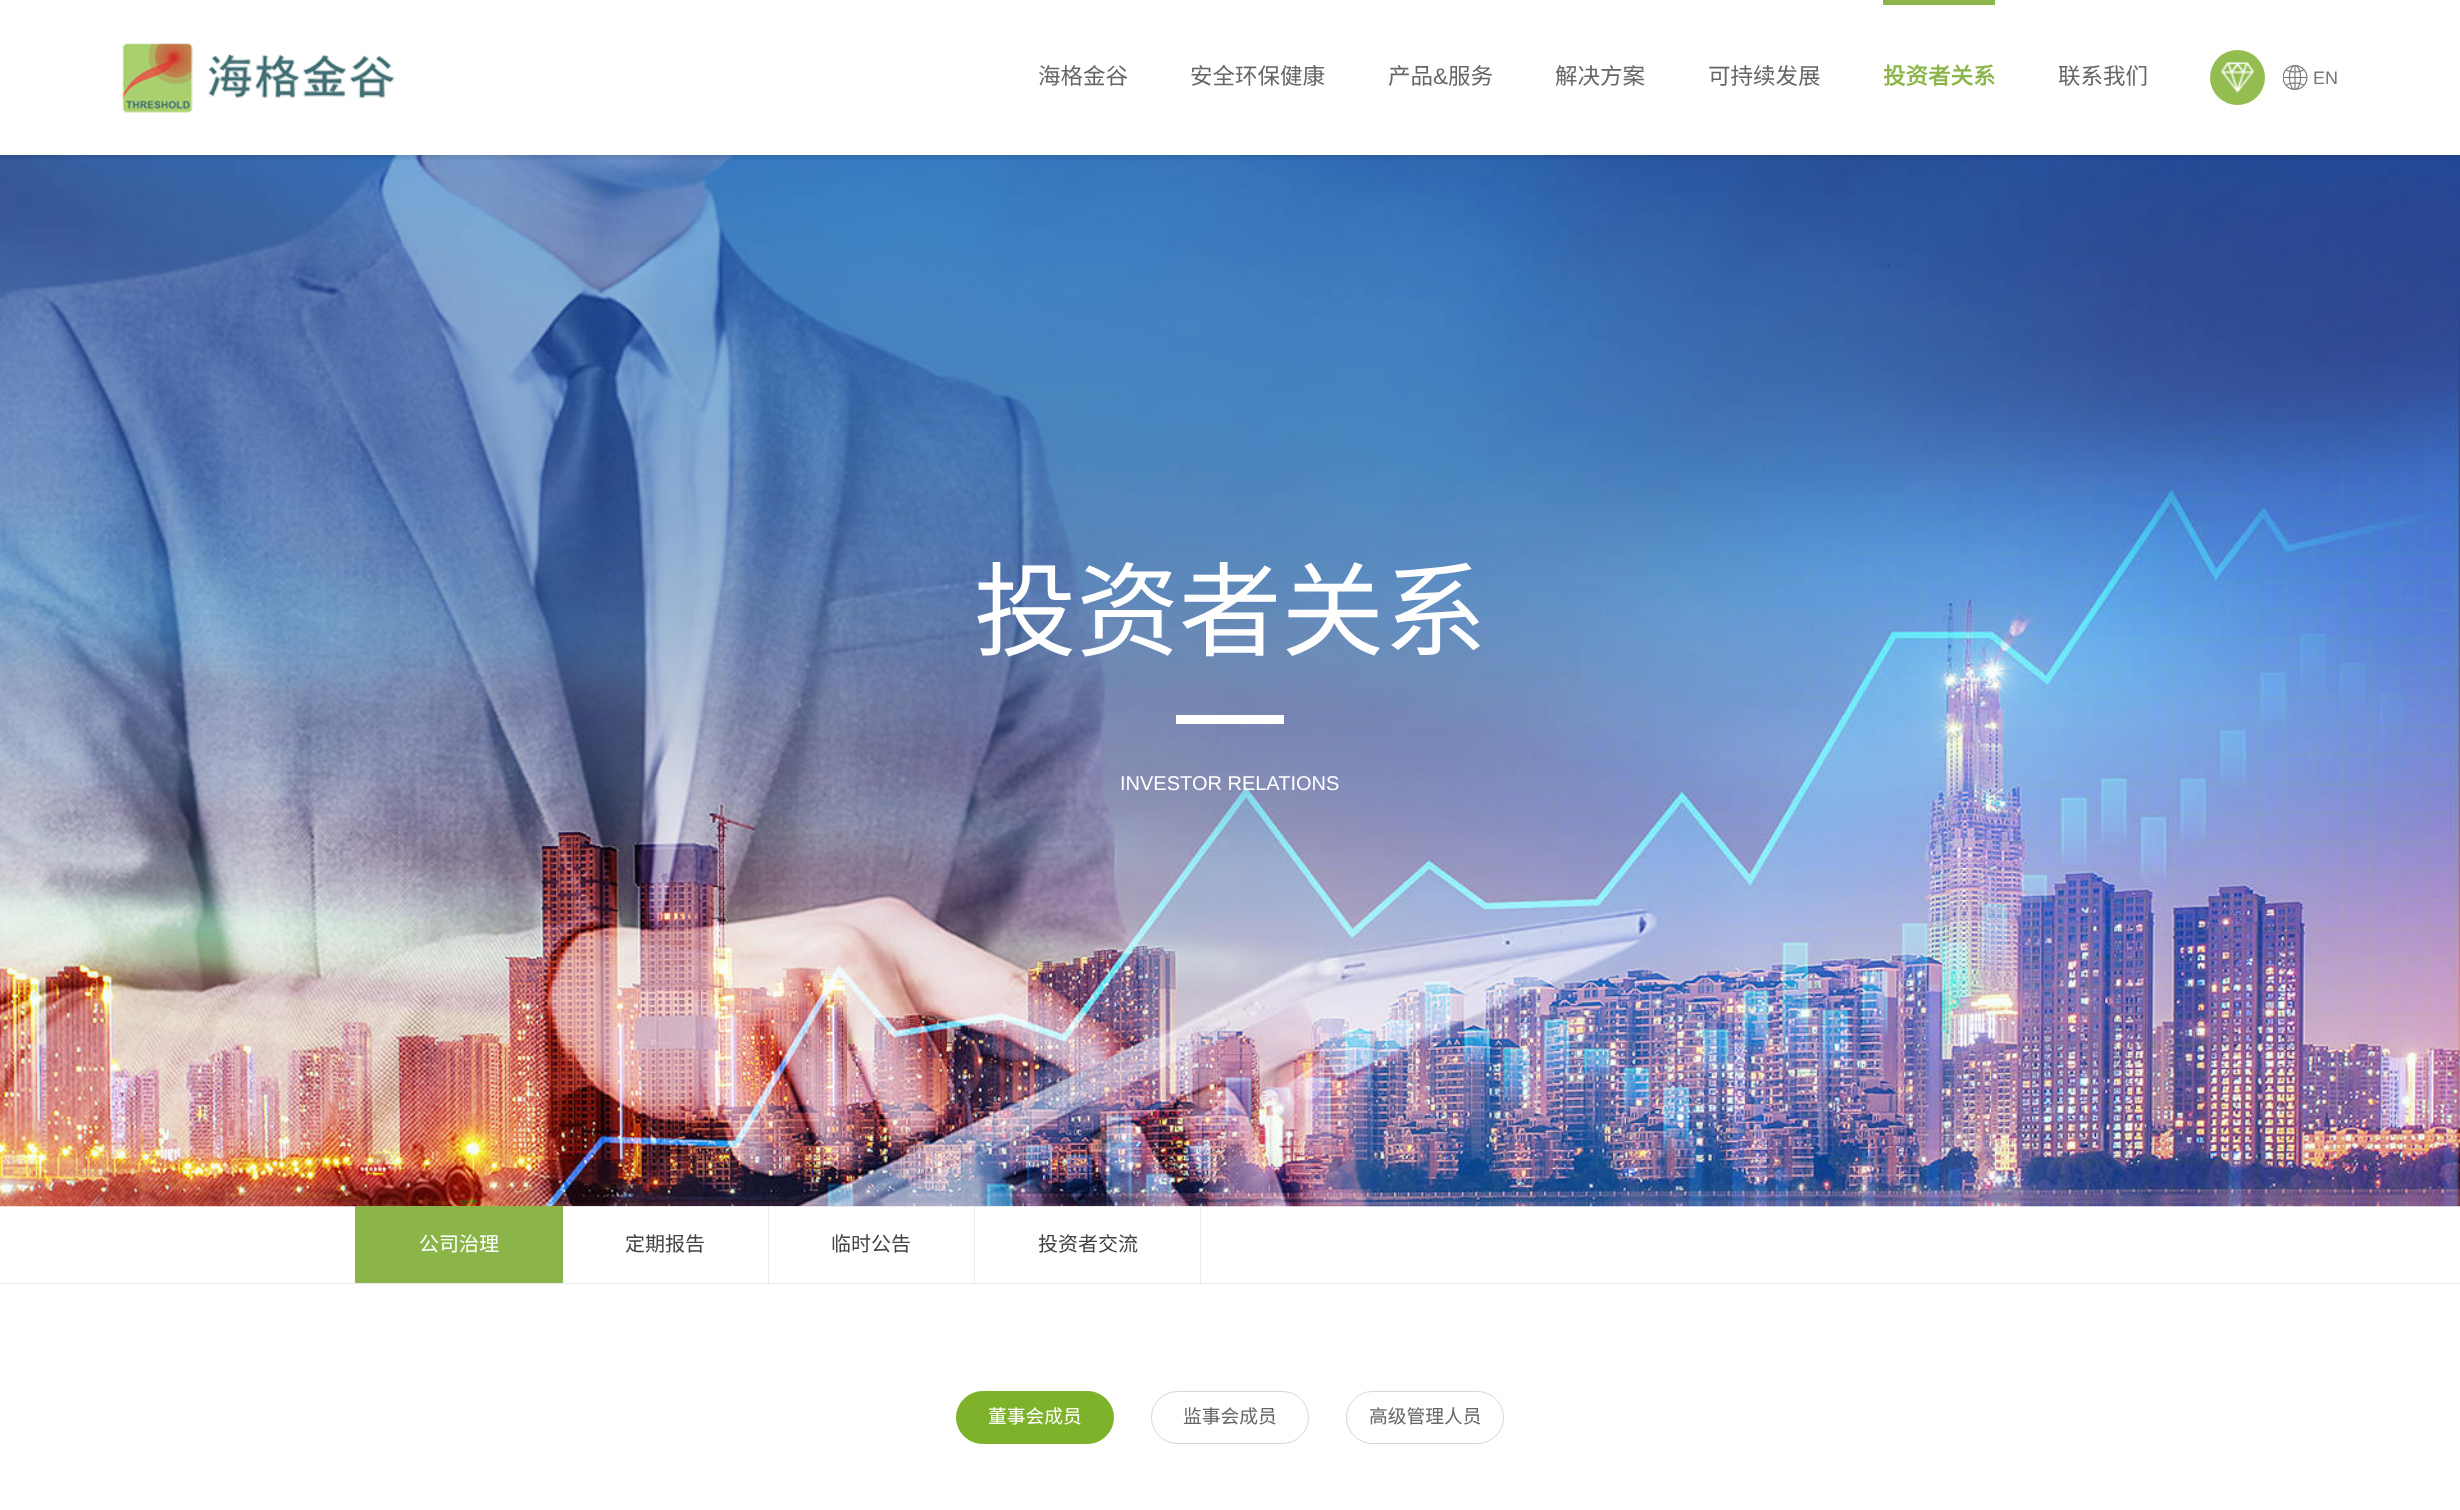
(async () => {
  const canvas = document.querySelector("canvas");
  canvas.width = 2460;
  canvas.height = 1510;
  const ctx = canvas.getContext("2d");
  ctx.miterLimit = 4;
  ctx.fontKerning = "normal";
  async function loadImage(src) {
    const img = new Image();
    img.src = src;
    await img.decode();
    return img;
  }

  ctx.fillStyle = "#ffffff";
  ctx.fillRect(0, 0, 2460, 1510);
  ctx.drawImage(await loadImage("img/4.png"), 0, 155, 2460, 1052);
  ctx.save();
  ctx.beginPath();
  ctx.rect(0, 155, 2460, 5);
  ctx.clip();
  ctx.fillStyle = "rgba(0, 0, 0, 0.1)";
  ctx.filter = "blur(2.5px)";
  ctx.beginPath();
  ctx.rect(0, 3, 2460, 155);
  ctx.fill();
  ctx.filter = "none";
  ctx.restore();
  ctx.drawImage(await loadImage("img/1.png"), 122, 43, 272, 70);
  ctx.fillStyle = "#8bb549";
  ctx.fillRect(1883, 0, 112, 5);
  ctx.fillStyle = "#93bd51";
  ctx.beginPath();
  ctx.arc(2237.5, 77.5, 27.5, 0, Math.PI * 2);
  ctx.fill();
  ctx.drawImage(await loadImage("img/2.png"), 2221, 62, 33, 31);
  ctx.drawImage(await loadImage("img/3.png"), 2283, 65, 25, 25);
  for (const [x, y, w, h, color] of [
    [1176, 715, 108, 9, "#ffffff"],
    [0, 1283, 2460, 1, "#eaeaea"],
    [355, 1206, 208, 77, "#8bb549"],
    [563, 1206, 638, 1, "#eaeaea"],
    [768, 1206, 1, 77, "#eaeaea"],
    [974, 1206, 1, 77, "#eaeaea"],
    [1200, 1206, 1, 77, "#eaeaea"],
  ]) {
    ctx.fillStyle = color;
    ctx.fillRect(x, y, w, h);
  }
  ctx.fillStyle = "#7eb22a";
  ctx.beginPath();
  ctx.roundRect(956.5, 1391.5, 157, 52, 26);
  ctx.fill();
  ctx.strokeStyle = "#7eb22a";
  ctx.stroke();
  ctx.beginPath();
  ctx.roundRect(1151.5, 1391.5, 157, 52, 26);
  ctx.strokeStyle = "#d6d6d6";
  ctx.stroke();
  ctx.beginPath();
  ctx.roundRect(1346.5, 1391.5, 157, 52, 26);
  ctx.stroke();
  ctx.font = "22.5px Noto Sans CJK SC";
  ctx.fillStyle = "#666666";
  for (const [text, x, y] of [
    ["海格金谷", 1038, 84],
    ["安全环保健康", 1190, 84],
    ["产品", 1388, 84],
  ]) {
    ctx.fillText(text, x, y);
  }
  ctx.font = "22.5px Liberation Sans";
  ctx.fillText("&", 1433, 84);
  ctx.font = "22.5px Noto Sans CJK SC";
  for (const [text, x, y] of [
    ["服务", 1448, 84],
    ["解决方案", 1555, 84],
    ["可持续发展", 1708, 84],
  ]) {
    ctx.fillText(text, x, y);
  }
  ctx.font = "bold 22.5px Noto Sans CJK SC";
  ctx.fillStyle = "#8bb549";
  ctx.fillText("投资者关系", 1883, 84);
  ctx.font = "22.5px Noto Sans CJK SC";
  ctx.fillStyle = "#666666";
  ctx.fillText("联系我们", 2058, 84);
  ctx.font = "18px Liberation Sans";
  ctx.fillStyle = "#777777";
  ctx.fillText("EN", 2313, 84);
  ctx.font = "102.5px Noto Sans CJK SC";
  ctx.fillStyle = "#ffffff";
  ctx.fillText("投资者关系", 974, 648);
  ctx.font = "20px Liberation Sans";
  ctx.fillText("INVESTOR RELATIONS", 1120, 790);
  ctx.font = "20px Noto Sans CJK SC";
  ctx.fillText("公司治理", 419, 1251);
  ctx.fillStyle = "#444444";
  for (const [text, x, y] of [
    ["定期报告", 625, 1251],
    ["临时公告", 831, 1251],
    ["投资者交流", 1038, 1251],
  ]) {
    ctx.fillText(text, x, y);
  }
  ctx.font = "18.75px Noto Sans CJK SC";
  ctx.fillStyle = "#ffffff";
  ctx.fillText("董事会成员", 988, 1423);
  ctx.fillStyle = "#666666";
  ctx.fillText("监事会成员", 1183, 1423);
  ctx.fillText("高级管理人员", 1369, 1423);
})();
